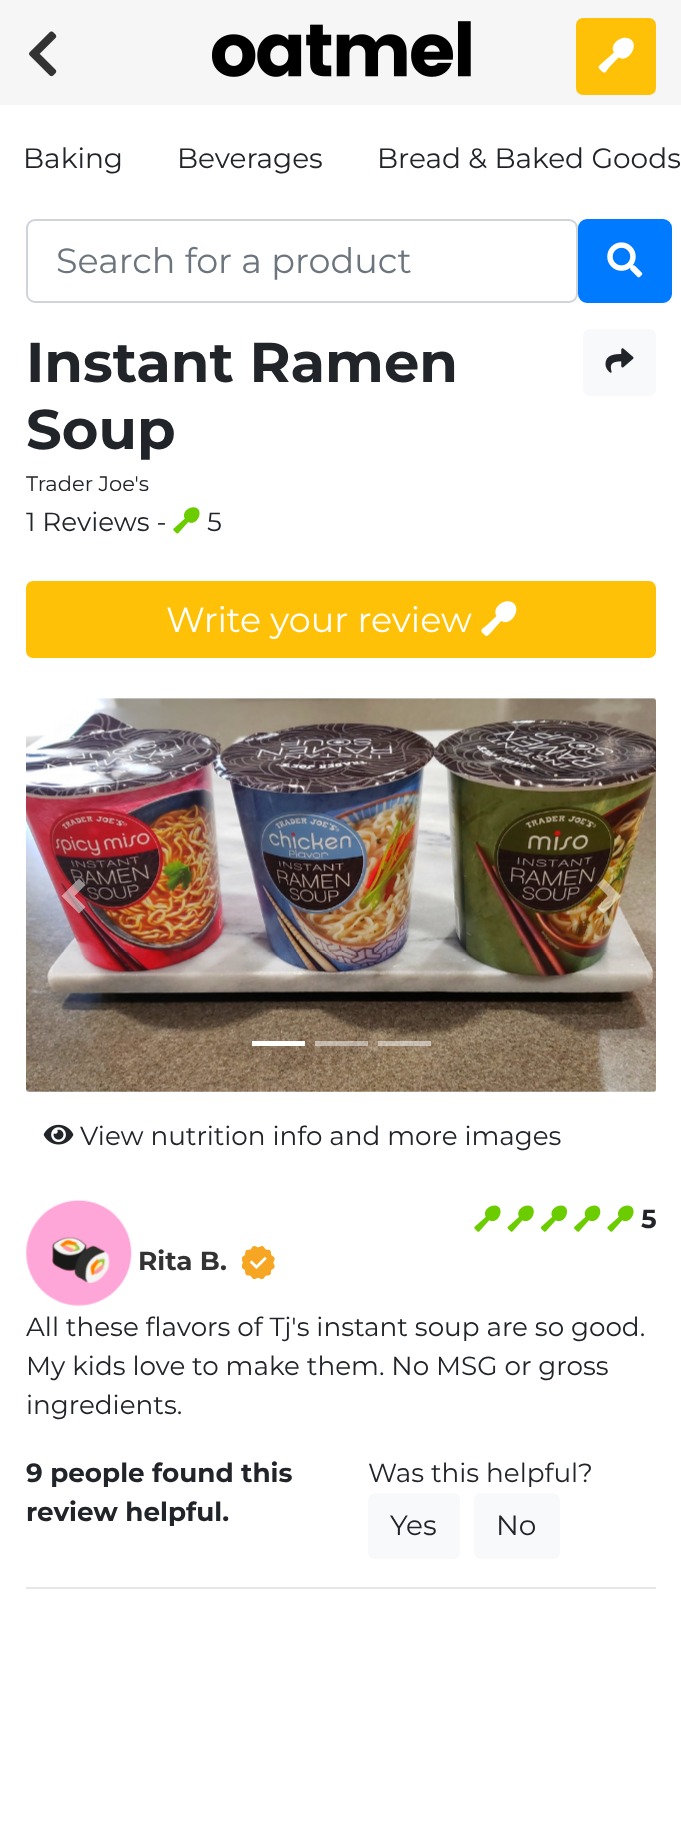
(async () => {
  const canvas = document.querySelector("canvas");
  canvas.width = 681;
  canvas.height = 1847;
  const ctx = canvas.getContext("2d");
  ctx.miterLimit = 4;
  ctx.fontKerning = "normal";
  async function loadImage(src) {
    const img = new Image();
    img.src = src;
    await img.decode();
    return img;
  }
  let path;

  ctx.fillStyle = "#ffffff";
  ctx.fillRect(0, 0, 681, 1847);
  ctx.fillStyle = "#f6f6f6";
  ctx.fillRect(0, 0, 681, 105);
  ctx.drawImage(await loadImage("img/1.png"), 29, 31, 28, 46);
  ctx.drawImage(await loadImage("img/2.png"), 212, 21, 259, 56);
  ctx.fillStyle = "#ffc107";
  ctx.beginPath();
  ctx.roundRect(577, 19, 78, 75, 6);
  ctx.fill();
  ctx.strokeStyle = "#ffc107";
  ctx.lineWidth = 2;
  ctx.stroke();
  ctx.fillStyle = "#ffffff";
  path = new Path2D("M631.5 40C638.5 47 628 63 618.5 57.5L609.5 67C606 71 605.5 75 601.5 71C597.5 67 597.5 67.5 601.5 63.5L614 52.5C608.5 43 624 33 631.5 40Z");
  ctx.fill(path);
  ctx.beginPath();
  ctx.roundRect(27, 220, 550, 82, 8);
  ctx.strokeStyle = "#ced4da";
  ctx.stroke();
  ctx.fillStyle = "#007bff";
  ctx.beginPath();
  ctx.roundRect(579, 220, 92, 82, 8);
  ctx.fill();
  ctx.strokeStyle = "#007bff";
  ctx.stroke();
  ctx.drawImage(await loadImage("img/3.png"), 607, 242, 36, 36);
  ctx.fillStyle = "#f8f9fa";
  ctx.beginPath();
  ctx.roundRect(583, 329, 73, 67, 7);
  ctx.fill();
  ctx.drawImage(await loadImage("img/4.png"), 605, 348, 29, 25);
  ctx.drawImage(await loadImage("img/5.png"), 173, 507, 27, 27);
  ctx.fillStyle = "#ffc107";
  ctx.beginPath();
  ctx.roundRect(27, 582, 628, 75, 6);
  ctx.fill();
  ctx.strokeStyle = "#ffc107";
  ctx.stroke();
  ctx.fillStyle = "#ffffff";
  path = new Path2D("M514 603.5C521 610.5 511 626.5 501 621L490.5 633C486.5 637 487 637 483 633.5C479 629.5 483 628.5 487 625L496.5 616C491 606.5 507 596.5 514 603.5Z");
  ctx.fill(path);
  ctx.drawImage(await loadImage("img/6.png"), 26, 698, 630, 394);
  for (const [x, y, w, h, color] of [
    [252, 1041, 53, 5, "#ffffff"],
    [315, 1041, 53, 5, "rgba(255, 255, 255, 0.5)"],
    [378, 1041, 53, 5, "rgba(255, 255, 255, 0.5)"],
  ]) {
    ctx.fillStyle = color;
    ctx.fillRect(x, y, w, h);
  }
  path = new Path2D("M79 878.5L61.5 896L79 913.5L85.5 907L74.5 896L85.5 885Z");
  ctx.fill(path);
  path = new Path2D("M603.5 878.5L597 885L608 896L597 907L603.5 913.5L621 896Z");
  ctx.fill(path);
  ctx.drawImage(await loadImage("img/7.png"), 43, 1124, 31, 21);
  ctx.drawImage(await loadImage("img/8.png"), 474, 1205, 27, 27);
  ctx.drawImage(await loadImage("img/9.png"), 507, 1205, 27, 27);
  ctx.drawImage(await loadImage("img/10.png"), 540, 1205, 27, 27);
  ctx.drawImage(await loadImage("img/11.png"), 574, 1205, 27, 27);
  ctx.drawImage(await loadImage("img/8.png"), 607, 1205, 27, 27);
  ctx.drawImage(await loadImage("img/12.png"), 26, 1199, 106, 107);
  ctx.drawImage(await loadImage("img/13.png"), 242, 1246, 33, 33);
  ctx.fillStyle = "#f8f9fa";
  ctx.beginPath();
  ctx.roundRect(368, 1493, 92, 66, 7);
  ctx.fill();
  ctx.beginPath();
  ctx.roundRect(474, 1493, 86, 66, 7);
  ctx.fill();
  ctx.fillStyle = "#e6e6e6";
  ctx.fillRect(26, 1587, 630, 2);
  ctx.font = "28px Montserrat";
  ctx.fillStyle = "#212529";
  for (const [text, x, y] of [
    ["Baking", 23, 168],
    ["Beverages", 177, 168],
    ["Bread & Baked Goods", 377, 168],
  ]) {
    ctx.fillText(text, x, y);
  }
  ctx.font = "35px Montserrat";
  ctx.fillStyle = "#6c757d";
  ctx.fillText("Search for a product", 56, 273);
  ctx.font = "bold 56px Montserrat";
  ctx.fillStyle = "#212529";
  ctx.fillText("Instant Ramen", 26, 382);
  ctx.fillText("Soup", 26, 449);
  ctx.font = "21px Montserrat";
  ctx.fillText("Trader Joe's", 26, 491);
  ctx.font = "26.25px Montserrat";
  ctx.fillText("1 Reviews -", 26, 531);
  ctx.fillText("5", 207, 531);
  ctx.font = "35px Montserrat";
  ctx.fillStyle = "#ffffff";
  ctx.fillText("Write your review", 166, 632);
  ctx.font = "26.25px Montserrat";
  ctx.fillStyle = "#212529";
  ctx.fillText("View nutrition info and more images", 80, 1145);
  ctx.font = "bold 26.25px Montserrat";
  ctx.fillText("5", 641, 1228);
  ctx.fillStyle = "#333333";
  ctx.fillText("Rita B.", 138, 1270);
  ctx.font = "26.25px Montserrat";
  ctx.fillStyle = "#212529";
  for (const [text, x, y] of [
    ["All these flavors of Tj's instant soup are so good.", 26, 1336],
    ["My kids love to make them. No MSG or gross", 26, 1375],
    ["ingredients.", 26, 1414],
  ]) {
    ctx.fillText(text, x, y);
  }
  ctx.font = "bold 26.25px Montserrat";
  ctx.fillText("9 people found this", 26, 1482);
  ctx.fillText("review helpful.", 26, 1521);
  ctx.font = "26.25px Montserrat";
  ctx.fillText("Was this helpful?", 368, 1482);
  ctx.font = "28px Montserrat";
  ctx.fillText("Yes", 390, 1535);
  ctx.fillText("No", 496, 1535);
})();
